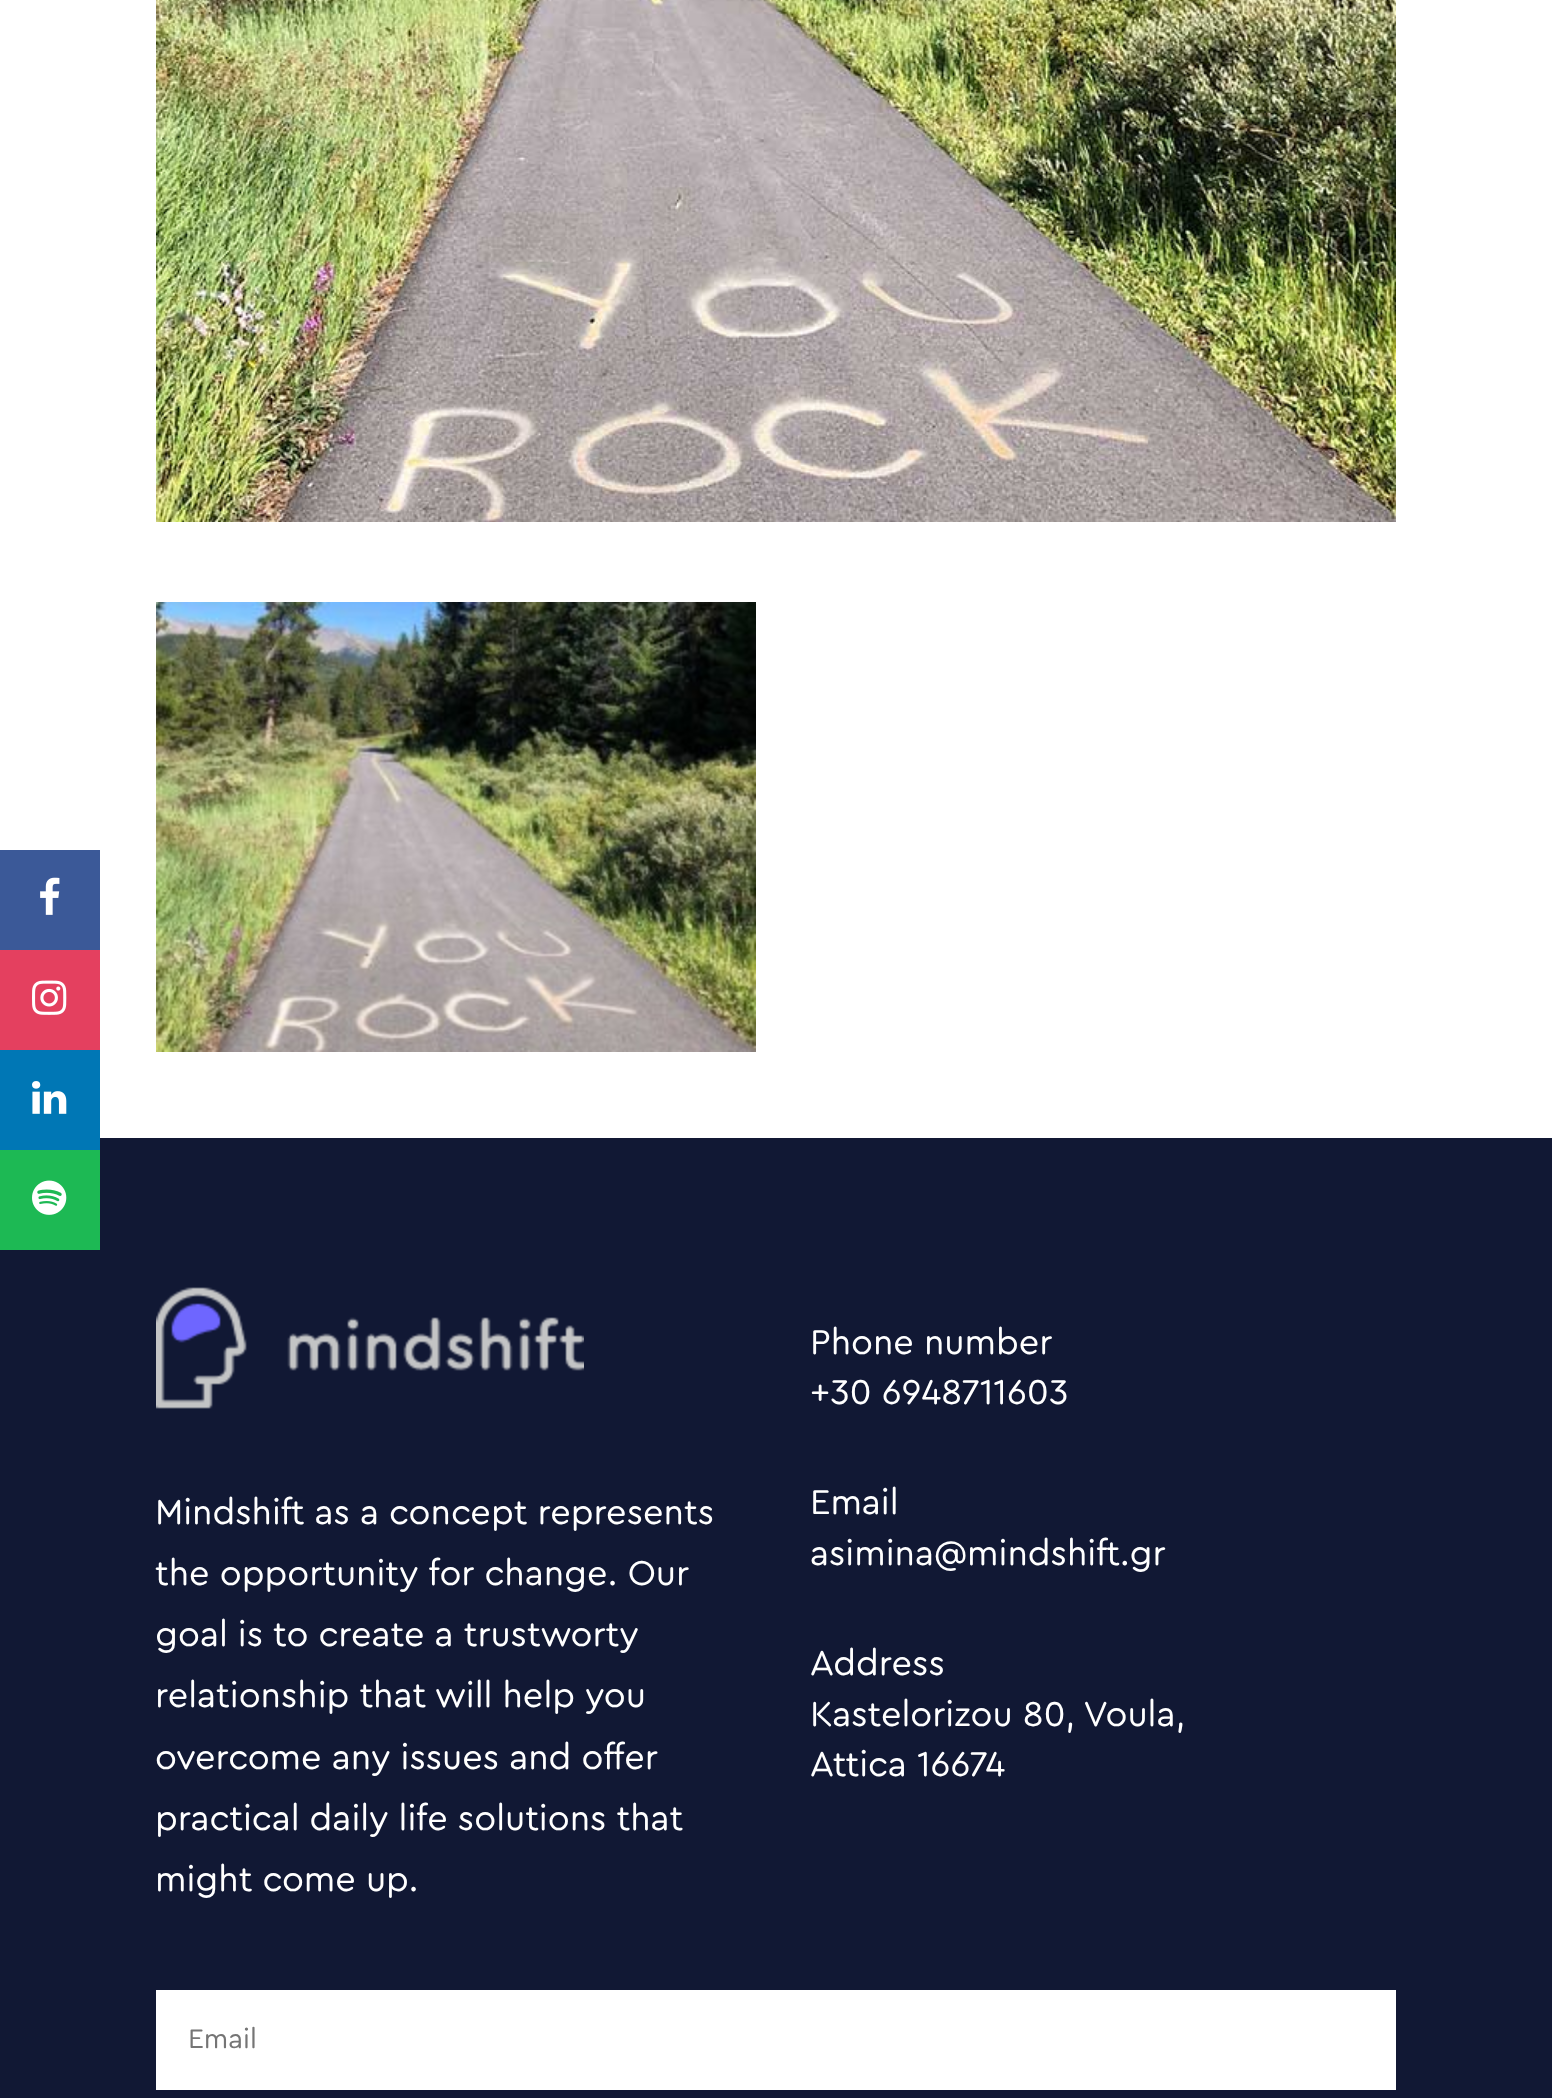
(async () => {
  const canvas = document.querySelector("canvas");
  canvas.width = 1552;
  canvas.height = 2098;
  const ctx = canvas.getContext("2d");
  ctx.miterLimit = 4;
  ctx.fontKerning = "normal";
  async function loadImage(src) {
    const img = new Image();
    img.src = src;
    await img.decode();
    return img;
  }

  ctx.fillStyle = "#ffffff";
  ctx.fillRect(0, 0, 1552, 2098);
  ctx.drawImage(await loadImage("img/1.png"), 156, 0, 1240, 522);
  ctx.drawImage(await loadImage("img/2.png"), 156, 602, 600, 450);
  ctx.fillStyle = "#3b5998";
  ctx.fillRect(0, 850, 100, 100);
  ctx.drawImage(await loadImage("img/3.png"), 40, 877, 20, 38);
  ctx.fillStyle = "#e4405f";
  ctx.fillRect(0, 950, 100, 100);
  ctx.drawImage(await loadImage("img/4.png"), 32, 980, 35, 35);
  ctx.fillStyle = "#111834";
  ctx.fillRect(0, 1138, 1552, 960);
  ctx.fillStyle = "#0077b5";
  ctx.fillRect(0, 1050, 100, 100);
  ctx.drawImage(await loadImage("img/5.png"), 32, 1081, 35, 33);
  ctx.fillStyle = "#1db954";
  ctx.fillRect(0, 1150, 100, 100);
  ctx.drawImage(await loadImage("img/6.png"), 32, 1180, 35, 35);
  ctx.drawImage(await loadImage("img/7.png"), 156, 1287, 428, 122);
  ctx.fillStyle = "#ffffff";
  ctx.fillRect(156, 1990, 1240, 100);
  ctx.font = "36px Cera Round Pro";
  for (const [text, x, y] of [
    ["Mindshift as a concept represents", 155, 1524],
    ["the opportunity for change. Our", 155, 1585],
    ["goal is to create a trustworty", 155, 1646],
    ["relationship that will help you", 155, 1707],
    ["overcome any issues and offer", 155, 1769],
    ["practical daily life solutions that", 155, 1830],
    ["might come up.", 155, 1891],
    ["Phone number", 810, 1354],
    ["+30 6948711603", 810, 1404],
    ["Email", 810, 1514],
    ["asimina@mindshift.gr", 810, 1565],
    ["Address", 810, 1675],
    ["Kastelorizou 80, Voula,", 810, 1726],
    ["Attica 16674", 810, 1776],
  ]) {
    ctx.fillText(text, x, y);
  }
  ctx.font = "28px Cera Round Pro";
  ctx.fillStyle = "#757575";
  ctx.fillText("Email", 188, 2048);
})();
